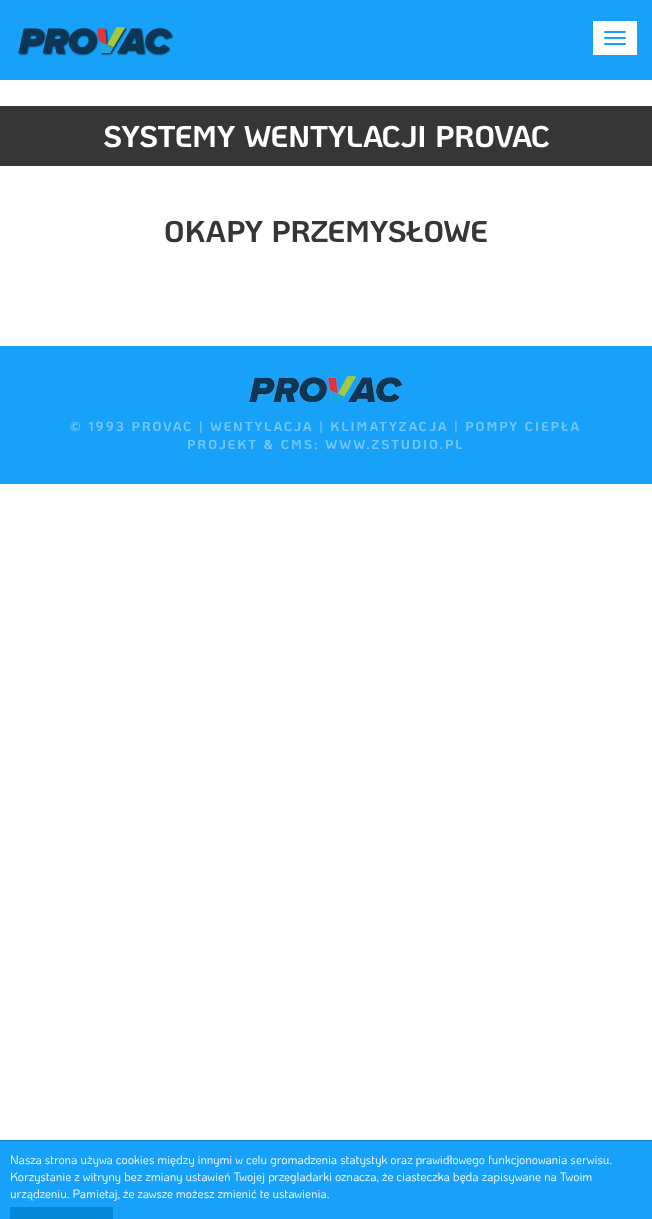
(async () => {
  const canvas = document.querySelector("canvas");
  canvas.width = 652;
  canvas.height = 1219;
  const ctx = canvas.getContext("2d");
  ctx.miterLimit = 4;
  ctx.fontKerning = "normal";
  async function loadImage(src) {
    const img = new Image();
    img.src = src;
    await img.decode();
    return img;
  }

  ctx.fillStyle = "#ffffff";
  ctx.fillRect(0, 0, 652, 1219);
  ctx.fillStyle = "#18a1f8";
  ctx.fillRect(0, 0, 652, 80);
  ctx.drawImage(await loadImage("img/1.png"), 18, 27, 156, 29);
  ctx.fillStyle = "#ffffff";
  ctx.fillRect(593, 21, 44, 34);
  ctx.fillStyle = "#18a1f8";
  ctx.beginPath();
  ctx.roundRect(604, 31, 22, 2, 1);
  ctx.fill();
  ctx.beginPath();
  ctx.roundRect(604, 37, 22, 2, 1);
  ctx.fill();
  ctx.beginPath();
  ctx.roundRect(604, 43, 22, 2, 1);
  ctx.fill();
  ctx.fillStyle = "#363636";
  ctx.fillRect(0, 106, 652, 60);
  ctx.fillStyle = "#18a1f8";
  ctx.fillRect(0, 346, 652, 138);
  ctx.drawImage(await loadImage("img/2.png"), 249, 376, 154, 26);
  for (const [x, y, w, h, color] of [
    [0, 1141, 652, 78, "#18a1f8"],
    [0, 1140, 652, 1, "#0686d7"],
    [10, 1207, 103, 12, "#0686d7"],
  ]) {
    ctx.fillStyle = color;
    ctx.fillRect(x, y, w, h);
  }
  ctx.font = "bold 30px KoHo";
  ctx.fillStyle = "#ffffff";
  ctx.fillText("SYSTEMY WENTYLACJI PROVAC", 103, 147);
  ctx.fillStyle = "#363636";
  ctx.fillText("OKAPY PRZEMYSŁOWE", 164, 242);
  ctx.letterSpacing = "2px";
  ctx.font = "bold 13px KoHo";
  ctx.fillStyle = "#74c7fb";
  ctx.fillText("© 1993 PROVAC | WENTYLACJA | KLIMATYZACJA | POMPY CIEPŁA", 70, 431);
  ctx.fillText("PROJEKT & CMS: WWW.ZSTUDIO.PL", 187, 449);
  ctx.letterSpacing = "0px";
  ctx.font = "12px KoHo";
  ctx.fillStyle = "#ffffff";
  for (const [text, x, y] of [
    ["Nasza strona używa cookies między innymi w celu gromadzenia statystyk oraz prawidłowego funkcjonowania serwisu.", 10, 1164],
    ["Korzystanie z witryny bez zmiany ustawień Twojej przegladarki oznacza, że ciasteczka będa zapisywane na Twoim", 10, 1181],
    ["urządzeniu. Pamietaj, że zawsze możesz zmienić te ustawienia.", 10, 1198],
  ]) {
    ctx.fillText(text, x, y);
  }
})();
